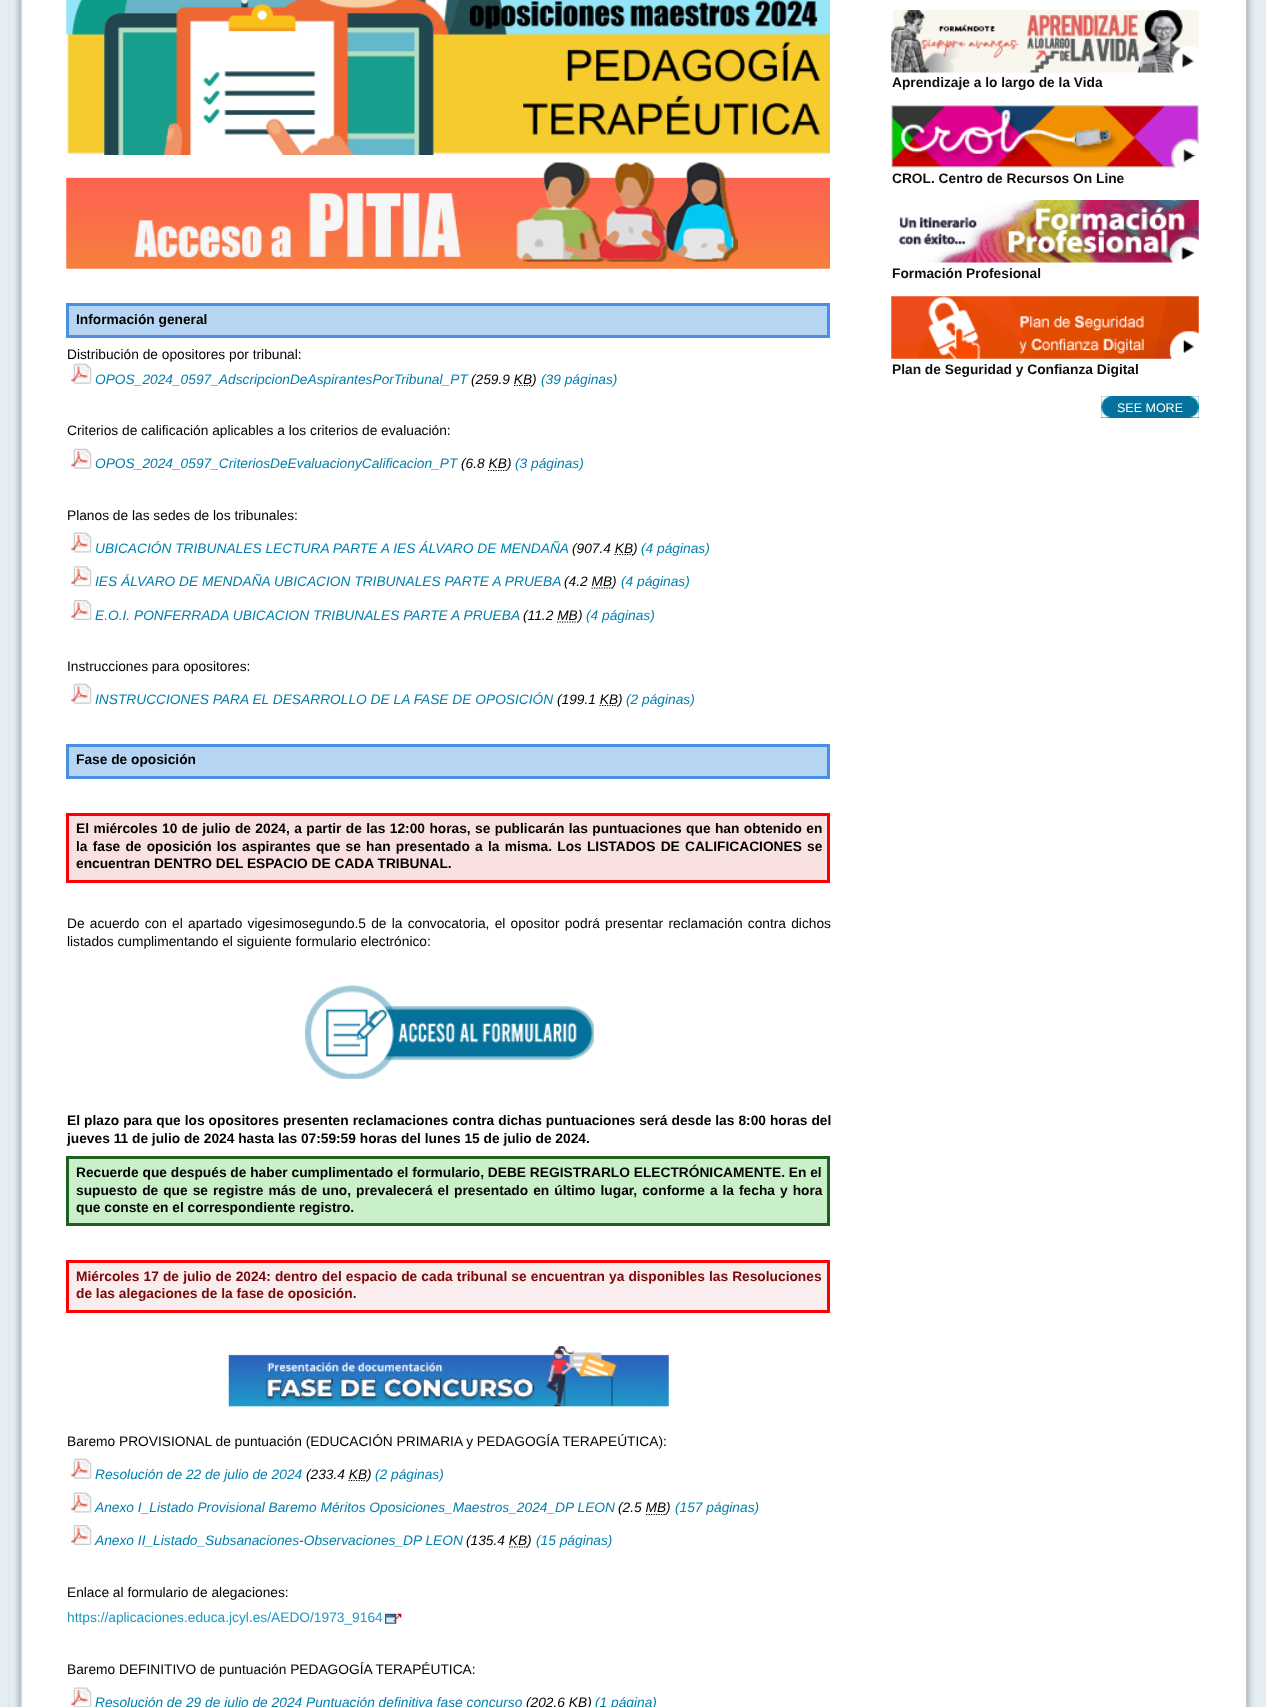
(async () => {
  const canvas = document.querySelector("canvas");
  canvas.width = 1266;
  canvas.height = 1707;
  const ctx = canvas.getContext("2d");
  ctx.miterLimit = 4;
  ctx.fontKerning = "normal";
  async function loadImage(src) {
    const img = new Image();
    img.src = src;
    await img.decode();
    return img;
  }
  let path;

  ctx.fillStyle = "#e4edf2";
  ctx.fillRect(0, 0, 1266, 1707);
  ctx.fillStyle = "#ffffff";
  ctx.fillRect(22, 0, 1237, 1707);
  ctx.drawImage(await loadImage("img/1.png"), 8, 0, 15, 1707);
  ctx.drawImage(await loadImage("img/2.png"), 1246, 0, 13, 1707);
  ctx.drawImage(await loadImage("img/3.png"), 891, 10, 308, 63);
  ctx.drawImage(await loadImage("img/4.png"), 891, 105, 308, 63);
  ctx.drawImage(await loadImage("img/5.png"), 898, 200, 301, 63);
  ctx.drawImage(await loadImage("img/6.png"), 891, 296, 308, 63);
  ctx.fillStyle = "#04729a";
  ctx.fillRect(1101, 396, 98, 22);
  ctx.drawImage(await loadImage("img/7.png"), 1101, 396, 11, 11);
  ctx.drawImage(await loadImage("img/8.png"), 1190, 396, 9, 11);
  ctx.drawImage(await loadImage("img/9.png"), 1101, 407, 10, 11);
  ctx.drawImage(await loadImage("img/10.png"), 1190, 408, 9, 10);
  ctx.drawImage(await loadImage("img/11.png"), 66, 0, 764, 155);
  ctx.drawImage(await loadImage("img/12.png"), 66, 162, 764, 107);
  ctx.fillStyle = "#b6d5f2";
  ctx.beginPath();
  ctx.rect(67.5, 304.5, 761, 32);
  ctx.fill();
  ctx.strokeStyle = "#4a90e2";
  ctx.lineWidth = 3;
  ctx.stroke();
  ctx.drawImage(await loadImage("img/13.png"), 71, 363, 21, 21);
  path = new Path2D("M514 385.5H532");
  ctx.strokeStyle = "#000000";
  ctx.lineWidth = 1.2;
  ctx.setLineDash([1.25, 1.25]);
  ctx.stroke(path);
  ctx.drawImage(await loadImage("img/13.png"), 71, 448, 21, 21);
  path = new Path2D("M488 470.5H506.5");
  ctx.stroke(path);
  ctx.drawImage(await loadImage("img/14.png"), 71, 532, 21, 21);
  path = new Path2D("M614.5 554.5H633");
  ctx.stroke(path);
  ctx.drawImage(await loadImage("img/15.png"), 71, 566, 21, 21);
  path = new Path2D("M591.5 588H612.5");
  ctx.stroke(path);
  ctx.drawImage(await loadImage("img/16.png"), 71, 600, 21, 20);
  path = new Path2D("M557 622H577.5");
  ctx.stroke(path);
  ctx.drawImage(await loadImage("img/13.png"), 71, 683, 21, 21);
  path = new Path2D("M599.5 705.5H617.5");
  ctx.stroke(path);
  ctx.beginPath();
  ctx.rect(67.5, 745.5, 761, 32);
  ctx.fill();
  ctx.strokeStyle = "#4a90e2";
  ctx.lineWidth = 3;
  ctx.setLineDash([]);
  ctx.stroke();
  ctx.fillStyle = "#fae1e1";
  ctx.beginPath();
  ctx.rect(67.5, 814.5, 761, 67);
  ctx.fill();
  ctx.strokeStyle = "#ff0000";
  ctx.stroke();
  ctx.drawImage(await loadImage("img/17.png"), 304, 985, 290, 94);
  ctx.fillStyle = "#caf0ca";
  ctx.beginPath();
  ctx.rect(67.5, 1157.5, 761, 67);
  ctx.fill();
  ctx.strokeStyle = "#1e601e";
  ctx.stroke();
  ctx.fillStyle = "#faeded";
  ctx.beginPath();
  ctx.rect(67.5, 1261.5, 761, 50);
  ctx.fill();
  ctx.strokeStyle = "#ff0000";
  ctx.stroke();
  ctx.drawImage(await loadImage("img/18.png"), 228, 1346, 441, 61);
  ctx.drawImage(await loadImage("img/13.png"), 71, 1458, 21, 21);
  path = new Path2D("M348.5 1480.5H366.5");
  ctx.strokeStyle = "#000000";
  ctx.lineWidth = 1.2;
  ctx.setLineDash([1.25, 1.25]);
  ctx.stroke(path);
  ctx.drawImage(await loadImage("img/14.png"), 71, 1492, 21, 21);
  path = new Path2D("M646 1514.5H666.5");
  ctx.stroke(path);
  ctx.drawImage(await loadImage("img/16.png"), 71, 1525, 21, 20);
  path = new Path2D("M509 1547H527.5");
  ctx.stroke(path);
  ctx.drawImage(await loadImage("img/19.png"), 385, 1613, 17, 11);
  ctx.drawImage(await loadImage("img/20.png"), 71, 1687, 21, 20);
  ctx.font = "bold 13.75px Liberation Sans";
  ctx.fillStyle = "#0d0d0d";
  for (const [text, x, y] of [
    ["Aprendizaje a lo largo de la Vida", 892, 87],
    ["CROL. Centro de Recursos On Line", 892, 183],
    ["Formación Profesional", 892, 278],
    ["Plan de Seguridad y Confianza Digital", 892, 374],
  ]) {
    ctx.fillText(text, x, y);
  }
  ctx.font = "12.5px Liberation Sans";
  ctx.fillStyle = "#ffffff";
  ctx.fillText("SEE MORE", 1117, 412);
  ctx.font = "bold 13.75px Liberation Sans";
  ctx.fillStyle = "#000000";
  ctx.fillText("Información general", 76, 324);
  ctx.font = "13.75px Liberation Sans";
  ctx.fillText("Distribución de opositores por tribunal:", 67, 359);
  ctx.font = "italic 13.75px Liberation Sans";
  ctx.fillStyle = "#007faf";
  ctx.fillText("OPOS_2024_0597_AdscripcionDeAspirantesPorTribunal_PT", 95, 384);
  ctx.fillStyle = "#000000";
  ctx.fillText("(259.9 KB", 471, 384);
  ctx.fillText(")", 532, 384);
  ctx.fillStyle = "#007faf";
  ctx.fillText("(39 páginas)", 541, 384);
  ctx.font = "13.75px Liberation Sans";
  ctx.fillStyle = "#000000";
  ctx.fillText("Criterios de calificación aplicables a los criterios de evaluación:", 67, 435);
  ctx.font = "italic 13.75px Liberation Sans";
  ctx.fillStyle = "#007faf";
  ctx.fillText("OPOS_2024_0597_CriteriosDeEvaluacionyCalificacion_PT", 95, 468);
  ctx.fillStyle = "#000000";
  ctx.fillText("(6.8 KB", 461, 468);
  ctx.fillText(")", 507, 468);
  ctx.fillStyle = "#007faf";
  ctx.fillText("(3 páginas)", 515, 468);
  ctx.font = "13.75px Liberation Sans";
  ctx.fillStyle = "#000000";
  ctx.fillText("Planos de las sedes de los tribunales:", 67, 520);
  ctx.font = "italic 13.75px Liberation Sans";
  ctx.fillStyle = "#007faf";
  ctx.fillText("UBICACIÓN TRIBUNALES LECTURA PARTE A IES ÁLVARO DE MENDAÑA", 95, 553);
  ctx.fillStyle = "#000000";
  ctx.fillText("(907.4 KB", 572, 553);
  ctx.fillText(")", 633, 553);
  ctx.fillStyle = "#007faf";
  ctx.fillText("(4 páginas)", 641, 553);
  ctx.fillText("IES ÁLVARO DE MENDAÑA UBICACION TRIBUNALES PARTE A PRUEBA", 95, 586);
  ctx.fillStyle = "#000000";
  ctx.fillText("(4.2 MB", 564, 586);
  ctx.fillText(")", 612, 586);
  ctx.fillStyle = "#007faf";
  ctx.fillText("(4 páginas)", 621, 586);
  ctx.fillText("E.O.I. PONFERRADA UBICACION TRIBUNALES PARTE A PRUEBA", 95, 620);
  ctx.fillStyle = "#000000";
  ctx.fillText("(11.2 MB", 523, 620);
  ctx.fillText(")", 578, 620);
  ctx.fillStyle = "#007faf";
  ctx.fillText("(4 páginas)", 586, 620);
  ctx.font = "13.75px Liberation Sans";
  ctx.fillStyle = "#000000";
  ctx.fillText("Instrucciones para opositores:", 67, 671);
  ctx.font = "italic 13.75px Liberation Sans";
  ctx.fillStyle = "#007faf";
  ctx.fillText("INSTRUCCIONES PARA EL DESARROLLO DE LA FASE DE OPOSICIÓN", 95, 704);
  ctx.fillStyle = "#000000";
  ctx.fillText("(199.1 KB", 557, 704);
  ctx.fillText(")", 618, 704);
  ctx.fillStyle = "#007faf";
  ctx.fillText("(2 páginas)", 626, 704);
  ctx.font = "bold 13.75px Liberation Sans";
  ctx.fillStyle = "#000000";
  ctx.fillText("Fase de oposición", 76, 764);
  ctx.wordSpacing = "0.6px";
  ctx.fillText("El miércoles 10 de julio de 2024, a partir de las 12:00 horas, se publicarán las puntuaciones que han obtenido en", 76, 833);
  ctx.wordSpacing = "1.4px";
  ctx.fillText("la fase de oposición los aspirantes que se han presentado a la misma. Los LISTADOS DE CALIFICACIONES se", 76, 851);
  ctx.wordSpacing = "0px";
  ctx.fillText("encuentran DENTRO DEL ESPACIO DE CADA TRIBUNAL.", 76, 868);
  ctx.wordSpacing = "1.4px";
  ctx.font = "13.75px Liberation Sans";
  ctx.fillText("De acuerdo con el apartado vigesimosegundo.5 de la convocatoria, el opositor podrá presentar reclamación contra dichos", 67, 928);
  ctx.wordSpacing = "0px";
  ctx.fillText("listados cumplimentando el siguiente formulario electrónico:", 67, 946);
  ctx.wordSpacing = "0.2px";
  ctx.font = "bold 13.75px Liberation Sans";
  ctx.fillText("El plazo para que los opositores presenten reclamaciones contra dichas puntuaciones será desde las 8:00 horas del", 67, 1125);
  ctx.wordSpacing = "0px";
  ctx.fillText("jueves 11 de julio de 2024 hasta las 07:59:59 horas del lunes 15 de julio de 2024.", 67, 1143);
  ctx.fillText("Recuerde que después de haber cumplimentado el formulario, DEBE REGISTRARLO ELECTRÓNICAMENTE. En el", 76, 1177);
  ctx.wordSpacing = "1.2px";
  ctx.fillText("supuesto de que se registre más de uno, prevalecerá el presentado en último lugar, conforme a la fecha y hora", 76, 1195);
  ctx.wordSpacing = "0px";
  ctx.fillText("que conste en el correspondiente registro.", 76, 1212);
  ctx.wordSpacing = "0.3px";
  ctx.fillStyle = "#7a0707";
  ctx.fillText("Miércoles 17 de julio de 2024: dentro del espacio de cada tribunal se encuentran ya disponibles las Resoluciones", 76, 1281);
  ctx.wordSpacing = "0px";
  ctx.fillText("de las alegaciones de la fase de oposición.", 76, 1298);
  ctx.font = "13.75px Liberation Sans";
  ctx.fillStyle = "#000000";
  ctx.fillText("Baremo PROVISIONAL de puntuación (EDUCACIÓN PRIMARIA y PEDAGOGÍA TERAPEÚTICA):", 67, 1446);
  ctx.font = "italic 13.75px Liberation Sans";
  ctx.fillStyle = "#007faf";
  ctx.fillText("Resolución de 22 de julio de 2024", 95, 1479);
  ctx.fillStyle = "#000000";
  ctx.fillText("(233.4 KB", 306, 1479);
  ctx.fillText(")", 367, 1479);
  ctx.fillStyle = "#007faf";
  ctx.fillText("(2 páginas)", 375, 1479);
  ctx.fillText("Anexo I_Listado Provisional Baremo Méritos Oposiciones_Maestros_2024_DP LEON", 95, 1512);
  ctx.fillStyle = "#000000";
  ctx.fillText("(2.5 MB", 618, 1512);
  ctx.fillText(")", 666, 1512);
  ctx.fillStyle = "#007faf";
  ctx.fillText("(157 páginas)", 675, 1512);
  ctx.fillText("Anexo II_Listado_Subsanaciones-Observaciones_DP LEON", 95, 1545);
  ctx.fillStyle = "#000000";
  ctx.fillText("(135.4 KB", 466, 1545);
  ctx.fillText(")", 527, 1545);
  ctx.fillStyle = "#007faf";
  ctx.fillText("(15 páginas)", 536, 1545);
  ctx.font = "13.75px Liberation Sans";
  ctx.fillStyle = "#000000";
  ctx.fillText("Enlace al formulario de alegaciones:", 67, 1597);
  ctx.fillStyle = "#1b99c7";
  ctx.fillText("https://aplicaciones.educa.jcyl.es/AEDO/1973_9164", 67, 1622);
  ctx.fillStyle = "#000000";
  ctx.fillText("Baremo DEFINITIVO de puntuación PEDAGOGÍA TERAPÉUTICA:", 67, 1674);
  ctx.font = "italic 13.75px Liberation Sans";
  ctx.fillStyle = "#007faf";
  ctx.fillText("Resolución de 29 de julio de 2024 Puntuación definitiva fase concurso", 95, 1707);
  ctx.fillStyle = "#000000";
  ctx.fillText("(202.6 KB)", 526, 1707);
  ctx.fillStyle = "#007faf";
  ctx.fillText("(1 página)", 595, 1707);
})();
